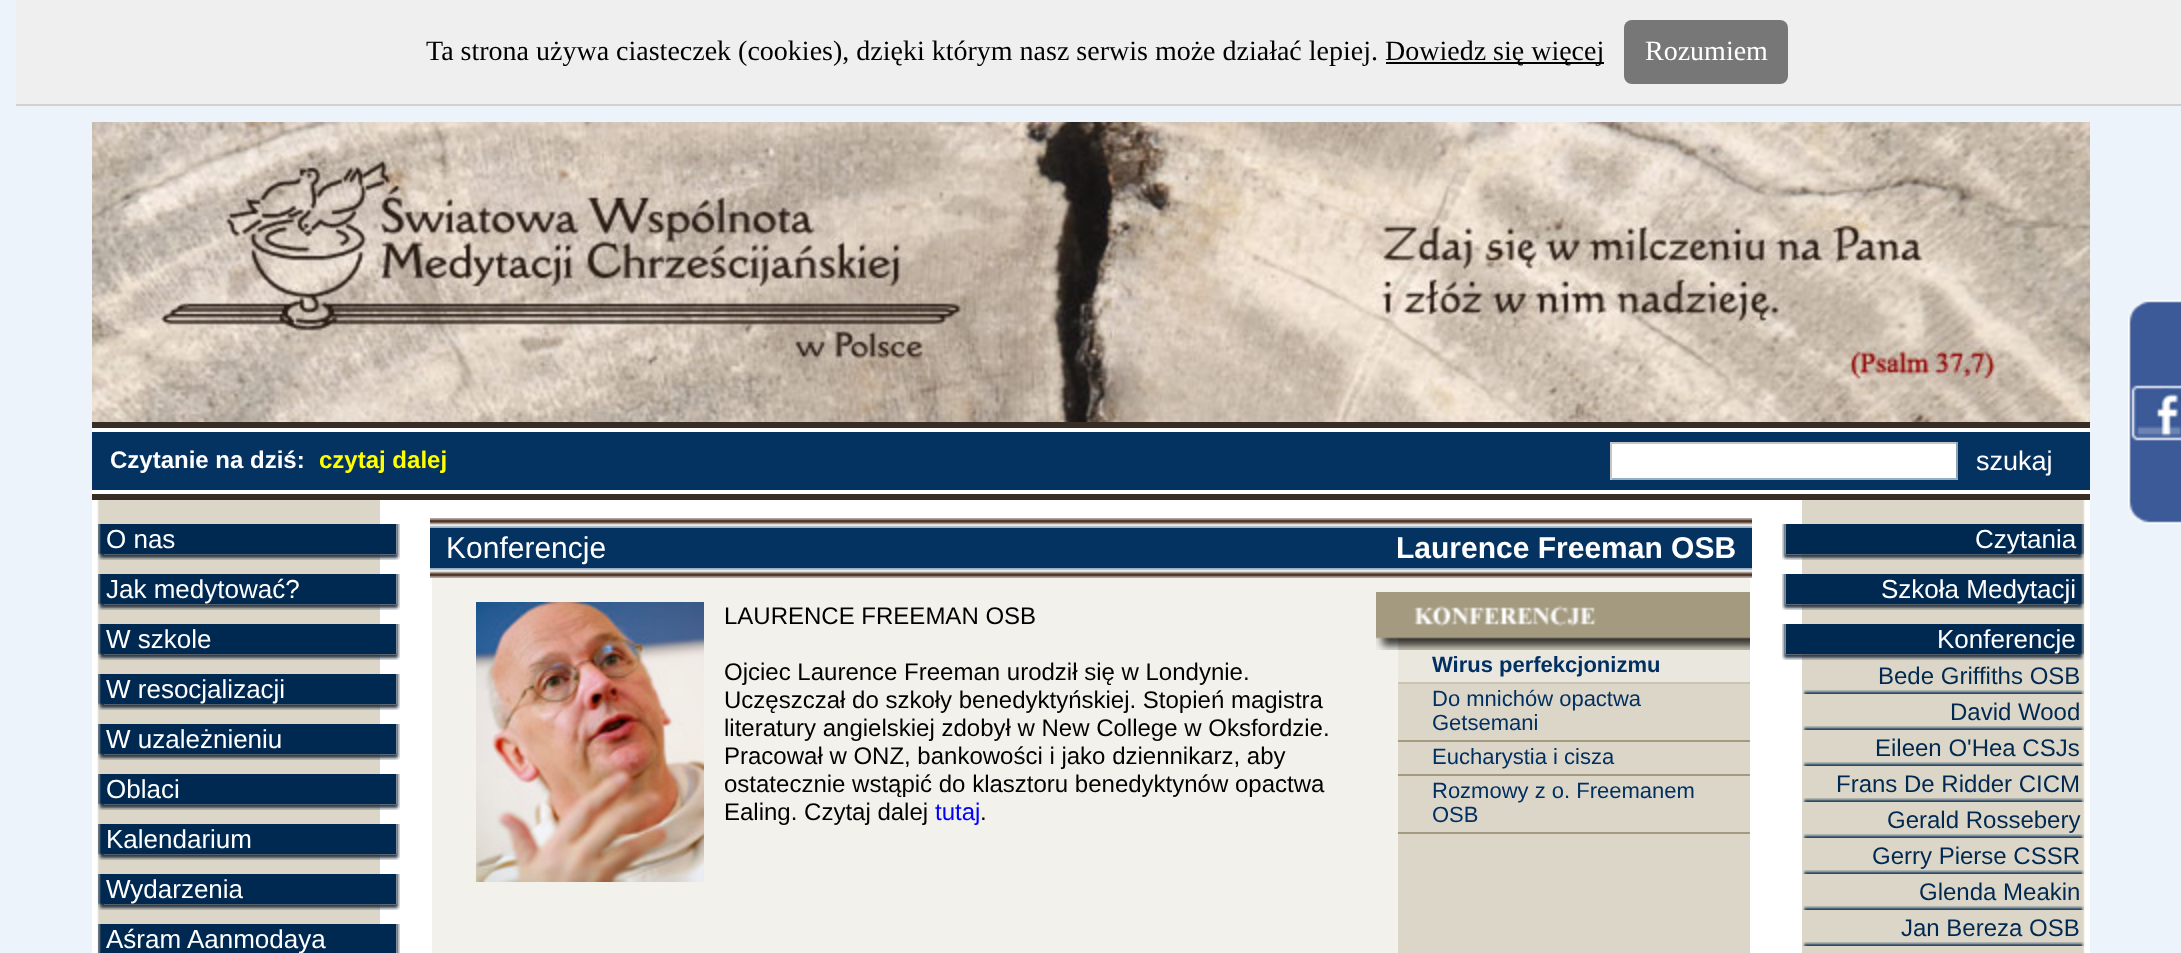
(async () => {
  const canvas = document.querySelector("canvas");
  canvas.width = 2181;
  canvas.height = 953;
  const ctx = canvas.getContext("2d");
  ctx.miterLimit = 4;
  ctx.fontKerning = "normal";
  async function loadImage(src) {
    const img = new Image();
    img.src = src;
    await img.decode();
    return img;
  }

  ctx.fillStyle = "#edf3fa";
  ctx.fillRect(0, 0, 2181, 953);
  for (const [x, y, w, h, color] of [
    [16, 0, 2165, 104, "#efefef"],
    [16, 104, 2165, 2, "#d3d0d0"],
    [1386, 62, 218, 2, "#000000"],
  ]) {
    ctx.fillStyle = color;
    ctx.fillRect(x, y, w, h);
  }
  ctx.fillStyle = "#777777";
  ctx.beginPath();
  ctx.roundRect(1624, 20, 164, 64, 8);
  ctx.fill();
  ctx.drawImage(await loadImage("img/1.png"), 2128, 300, 53, 224);
  ctx.fillStyle = "#382d25";
  ctx.fillRect(92, 422, 1998, 6);
  ctx.drawImage(await loadImage("img/2.png"), 92, 122, 1998, 300);
  for (const [x, y, w, h, color] of [
    [92, 432, 1998, 58, "#053361"],
    [92, 428, 1998, 4, "#ffffff"],
    [92, 490, 1998, 4, "#ffffff"],
    [1612, 444, 344, 34, "#ffffff"],
    [1610, 442, 348, 2, "#c4c4c4"],
    [1956, 442, 2, 38, "#8ca4b3"],
    [1610, 478, 348, 2, "#95afc2"],
    [1610, 442, 2, 38, "#c6c6c6"],
    [92, 500, 1998, 453, "#ffffff"],
  ]) {
    ctx.fillStyle = color;
    ctx.fillRect(x, y, w, h);
  }
  ctx.drawImage(await loadImage("img/7.png"), 97, 500, 283, 453);
  ctx.drawImage(await loadImage("img/3.png"), 98, 524, 6, 36);
  ctx.drawImage(await loadImage("img/4.png"), 104, 524, 296, 36);
  ctx.fillStyle = "#002951";
  ctx.fillRect(104, 524, 292, 30);
  ctx.drawImage(await loadImage("img/3.png"), 98, 574, 6, 36);
  ctx.drawImage(await loadImage("img/4.png"), 104, 574, 296, 36);
  ctx.fillRect(104, 574, 292, 30);
  ctx.drawImage(await loadImage("img/3.png"), 98, 624, 6, 36);
  ctx.drawImage(await loadImage("img/4.png"), 104, 624, 296, 36);
  ctx.fillRect(104, 624, 292, 30);
  ctx.drawImage(await loadImage("img/3.png"), 98, 674, 6, 36);
  ctx.drawImage(await loadImage("img/4.png"), 104, 674, 296, 36);
  ctx.fillRect(104, 674, 292, 30);
  ctx.drawImage(await loadImage("img/3.png"), 98, 724, 6, 36);
  ctx.drawImage(await loadImage("img/4.png"), 104, 724, 296, 36);
  ctx.fillRect(104, 724, 292, 30);
  ctx.drawImage(await loadImage("img/3.png"), 98, 774, 6, 36);
  ctx.drawImage(await loadImage("img/4.png"), 104, 774, 296, 36);
  ctx.fillRect(104, 774, 292, 30);
  ctx.drawImage(await loadImage("img/3.png"), 98, 824, 6, 36);
  ctx.drawImage(await loadImage("img/4.png"), 104, 824, 296, 36);
  ctx.fillRect(104, 824, 292, 30);
  ctx.drawImage(await loadImage("img/3.png"), 98, 874, 6, 36);
  ctx.drawImage(await loadImage("img/4.png"), 104, 874, 296, 36);
  ctx.fillRect(104, 874, 292, 30);
  ctx.drawImage(await loadImage("img/5.png"), 98, 924, 6, 29);
  ctx.drawImage(await loadImage("img/6.png"), 396, 924, 4, 29);
  ctx.fillRect(104, 924, 292, 29);
  ctx.fillStyle = "#382d25";
  ctx.fillRect(92, 494, 1998, 6);
  ctx.drawImage(await loadImage("img/8.png"), 1802, 500, 283, 453);
  ctx.drawImage(await loadImage("img/9.png"), 430, 518, 1322, 10);
  ctx.fillStyle = "#053361";
  ctx.fillRect(430, 528, 1322, 40);
  ctx.drawImage(await loadImage("img/10.png"), 430, 568, 1322, 10);
  ctx.fillStyle = "#f2f1eb";
  ctx.fillRect(432, 578, 1318, 375);
  ctx.drawImage(await loadImage("img/11.png"), 476, 602, 228, 280);
  ctx.drawImage(await loadImage("img/12.png"), 1376, 592, 374, 58);
  for (const [x, y, w, h, color] of [
    [1398, 684, 352, 269, "#dbd6c7"],
    [1398, 650, 352, 32, "#eae7de"],
    [1398, 682, 352, 2, "#cbc4b5"],
    [1398, 740, 352, 2, "#a39a80"],
    [1398, 774, 352, 2, "#a39a80"],
    [1398, 832, 352, 2, "#a39a80"],
  ]) {
    ctx.fillStyle = color;
    ctx.fillRect(x, y, w, h);
  }
  ctx.drawImage(await loadImage("img/13.png"), 2078, 524, 6, 36);
  ctx.drawImage(await loadImage("img/14.png"), 1782, 524, 296, 36);
  ctx.fillStyle = "#002951";
  ctx.fillRect(1786, 524, 292, 30);
  ctx.drawImage(await loadImage("img/13.png"), 2078, 574, 6, 36);
  ctx.drawImage(await loadImage("img/14.png"), 1782, 574, 296, 36);
  ctx.fillRect(1786, 574, 292, 30);
  ctx.drawImage(await loadImage("img/13.png"), 2078, 624, 6, 36);
  ctx.drawImage(await loadImage("img/14.png"), 1782, 624, 296, 36);
  ctx.fillRect(1786, 624, 292, 30);
  ctx.drawImage(await loadImage("img/15.png"), 1803, 690, 281, 4);
  ctx.drawImage(await loadImage("img/15.png"), 1803, 726, 281, 4);
  ctx.drawImage(await loadImage("img/15.png"), 1803, 762, 281, 4);
  ctx.drawImage(await loadImage("img/15.png"), 1803, 798, 281, 4);
  ctx.drawImage(await loadImage("img/15.png"), 1803, 834, 281, 4);
  ctx.drawImage(await loadImage("img/15.png"), 1803, 870, 281, 4);
  ctx.drawImage(await loadImage("img/15.png"), 1803, 906, 281, 4);
  ctx.drawImage(await loadImage("img/15.png"), 1803, 942, 281, 4);
  ctx.font = "28px Liberation Serif";
  ctx.fillStyle = "#000000";
  ctx.fillText("Ta strona używa ciasteczek (cookies), dzięki którym nasz serwis może działać lepiej.", 426, 60);
  ctx.fillText("Dowiedz się więcej", 1385, 60);
  ctx.fillStyle = "#ffffff";
  ctx.fillText("Rozumiem", 1645, 60);
  ctx.font = "bold 24px Liberation Sans";
  ctx.fillText("Czytanie na dziś:", 110, 468);
  ctx.fillStyle = "#ffff00";
  ctx.fillText("czytaj dalej", 319, 468);
  ctx.font = "27px Liberation Sans";
  ctx.fillStyle = "#ffffff";
  ctx.fillText("szukaj", 1976, 470);
  ctx.font = "26px Liberation Sans";
  for (const [text, x, y] of [
    ["O nas", 106, 548],
    ["Jak medytować?", 106, 598],
    ["W szkole", 106, 648],
    ["W resocjalizacji", 106, 698],
    ["W uzależnieniu", 106, 748],
    ["Oblaci", 106, 798],
    ["Kalendarium", 106, 848],
    ["Wydarzenia", 106, 898],
    ["Aśram Aanmodaya", 106, 948],
  ]) {
    ctx.fillText(text, x, y);
  }
  ctx.font = "30px Liberation Sans";
  ctx.fillText("Konferencje", 446, 558);
  ctx.font = "bold 30px Liberation Sans";
  ctx.fillText("Laurence Freeman OSB", 1396, 558);
  ctx.font = "24px Liberation Sans";
  ctx.fillStyle = "#000000";
  for (const [text, x, y] of [
    ["LAURENCE FREEMAN OSB", 724, 624],
    ["Ojciec Laurence Freeman urodził się w Londynie.", 724, 680],
    ["Uczęszczał do szkoły benedyktyńskiej. Stopień magistra", 724, 708],
    ["literatury angielskiej zdobył w New College w Oksfordzie.", 724, 736],
    ["Pracował w ONZ, bankowości i jako dziennikarz, aby", 724, 764],
    ["ostatecznie wstąpić do klasztoru benedyktynów opactwa", 724, 792],
    ["Ealing. Czytaj dalej", 724, 820],
  ]) {
    ctx.fillText(text, x, y);
  }
  ctx.fillStyle = "#0000ff";
  ctx.fillText("tutaj", 935, 820);
  ctx.fillStyle = "#000000";
  ctx.fillText(".", 980, 820);
  ctx.font = "bold 22px Liberation Sans";
  ctx.fillStyle = "#002f62";
  ctx.fillText("Wirus perfekcjonizmu", 1432, 672);
  ctx.font = "22px Liberation Sans";
  for (const [text, x, y] of [
    ["Do mnichów opactwa", 1432, 706],
    ["Getsemani", 1432, 730],
    ["Eucharystia i cisza", 1432, 764],
    ["Rozmowy z o. Freemanem", 1432, 798],
    ["OSB", 1432, 822],
  ]) {
    ctx.fillText(text, x, y);
  }
  ctx.font = "26px Liberation Sans";
  ctx.fillStyle = "#ffffff";
  for (const [text, x, y] of [
    ["Czytania", 1975, 548],
    ["Szkoła Medytacji", 1881, 598],
    ["Konferencje", 1937, 648],
  ]) {
    ctx.fillText(text, x, y);
  }
  ctx.font = "24px Liberation Sans";
  ctx.fillStyle = "#002951";
  for (const [text, x, y] of [
    ["Bede Griffiths OSB", 1878, 684],
    ["David Wood", 1950, 720],
    ["Eileen O'Hea CSJs", 1875, 756],
    ["Frans De Ridder CICM", 1836, 792],
    ["Gerald Rossebery", 1887, 828],
    ["Gerry Pierse CSSR", 1872, 864],
    ["Glenda Meakin", 1919, 900],
    ["Jan Bereza OSB", 1901, 936],
  ]) {
    ctx.fillText(text, x, y);
  }
})();
